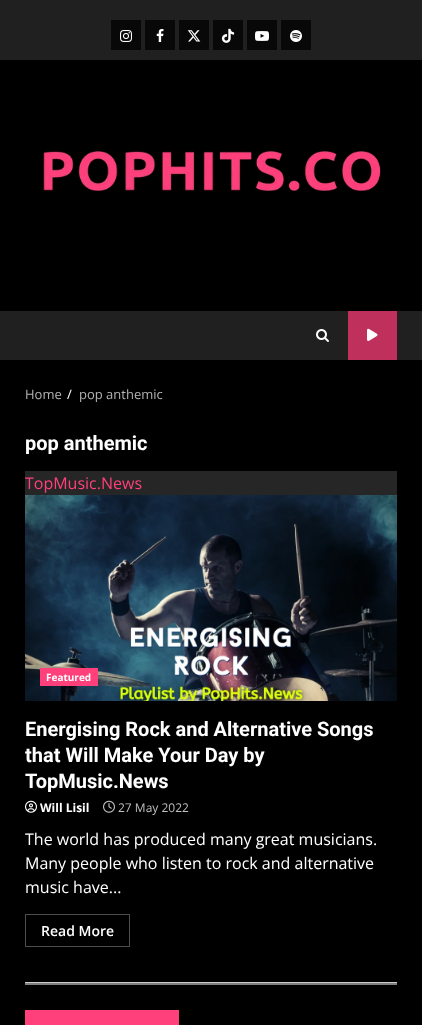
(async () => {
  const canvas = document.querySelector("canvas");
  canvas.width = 422;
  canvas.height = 1025;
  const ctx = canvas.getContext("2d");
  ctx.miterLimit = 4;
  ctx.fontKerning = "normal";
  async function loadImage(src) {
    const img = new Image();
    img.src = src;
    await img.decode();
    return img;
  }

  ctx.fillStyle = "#000000";
  ctx.fillRect(0, 0, 422, 1025);
  ctx.fillStyle = "#202020";
  ctx.fillRect(0, 0, 422, 60);
  ctx.fillStyle = "#080808";
  ctx.fillRect(111, 20, 30, 30);
  ctx.drawImage(await loadImage("img/1.png"), 120, 30, 12, 12);
  ctx.fillRect(145, 20, 30, 30);
  ctx.drawImage(await loadImage("img/2.png"), 156, 29, 8, 13);
  ctx.fillRect(179, 20, 30, 30);
  ctx.drawImage(await loadImage("img/3.png"), 187, 30, 14, 12);
  ctx.fillRect(213, 20, 30, 30);
  ctx.drawImage(await loadImage("img/4.png"), 221, 28, 14, 15);
  ctx.fillRect(247, 20, 30, 30);
  ctx.drawImage(await loadImage("img/5.png"), 255, 31, 14, 10);
  ctx.fillRect(281, 20, 30, 30);
  ctx.drawImage(await loadImage("img/6.png"), 290, 30, 12, 12);
  ctx.drawImage(await loadImage("img/7.png"), 42, 150, 340, 42);
  ctx.fillStyle = "#202020";
  ctx.fillRect(0, 311, 422, 49);
  ctx.drawImage(await loadImage("img/8.png"), 316, 329, 13, 13);
  ctx.fillStyle = "#bf305c";
  ctx.fillRect(348, 311, 49, 49);
  ctx.drawImage(await loadImage("img/9.png"), 367, 328, 11, 13);
  ctx.fillStyle = "#262626";
  ctx.fillRect(25, 471, 372, 24);
  ctx.drawImage(await loadImage("img/10.png"), 25, 495, 372, 206);
  ctx.fillStyle = "#ff407b";
  ctx.fillRect(40, 668, 58, 18);
  ctx.drawImage(await loadImage("img/11.png"), 25, 800, 12, 13);
  ctx.drawImage(await loadImage("img/12.png"), 103, 800, 12, 13);
  ctx.strokeStyle = "#4d4d4d";
  ctx.strokeRect(25.5, 914.5, 104, 32);
  for (const [x, y, w, h, color] of [
    [25, 982, 372, 1, "#cccccc"],
    [25, 983, 372, 2, "#808080"],
    [25, 1010, 154, 15, "#ff407b"],
  ]) {
    ctx.fillStyle = color;
    ctx.fillRect(x, y, w, h);
  }
  ctx.font = "13px Open Sans";
  ctx.fillStyle = "#b3b3b3";
  ctx.fillText("Home", 25, 399);
  ctx.fillStyle = "#ffffff";
  ctx.fillText("/", 67, 399);
  ctx.fillStyle = "#b3b3b3";
  ctx.fillText("pop anthemic", 79, 399);
  ctx.font = "bold 20px Roboto";
  ctx.fillStyle = "#ffffff";
  ctx.fillText("pop anthemic", 25, 450);
  ctx.font = "16px Open Sans";
  ctx.fillStyle = "#ff407b";
  ctx.fillText("TopMusic.News", 25, 489);
  ctx.font = "bold 10px Open Sans";
  ctx.fillStyle = "#ffffff";
  ctx.fillText("Featured", 46, 681);
  ctx.font = "bold 20px Roboto";
  for (const [text, x, y] of [
    ["Energising Rock and Alternative Songs", 25, 736],
    ["that Will Make Your Day by", 25, 762],
    ["TopMusic.News", 25, 788],
  ]) {
    ctx.fillText(text, x, y);
  }
  ctx.font = "bold 12px Open Sans";
  ctx.fillText("Will Lisil", 40, 812);
  ctx.font = "12px Open Sans";
  ctx.fillStyle = "#bfbfbf";
  ctx.fillText("27 May 2022", 118, 812);
  ctx.font = "16px Open Sans";
  ctx.fillStyle = "#ffffff";
  for (const [text, x, y] of [
    ["The world has produced many great musicians.", 25, 845],
    ["Many people who listen to rock and alternative", 25, 869],
    ["music have...", 25, 893],
  ]) {
    ctx.fillText(text, x, y);
  }
  ctx.font = "600 14px Open Sans";
  ctx.fillText("Read More", 41, 936);
})();
